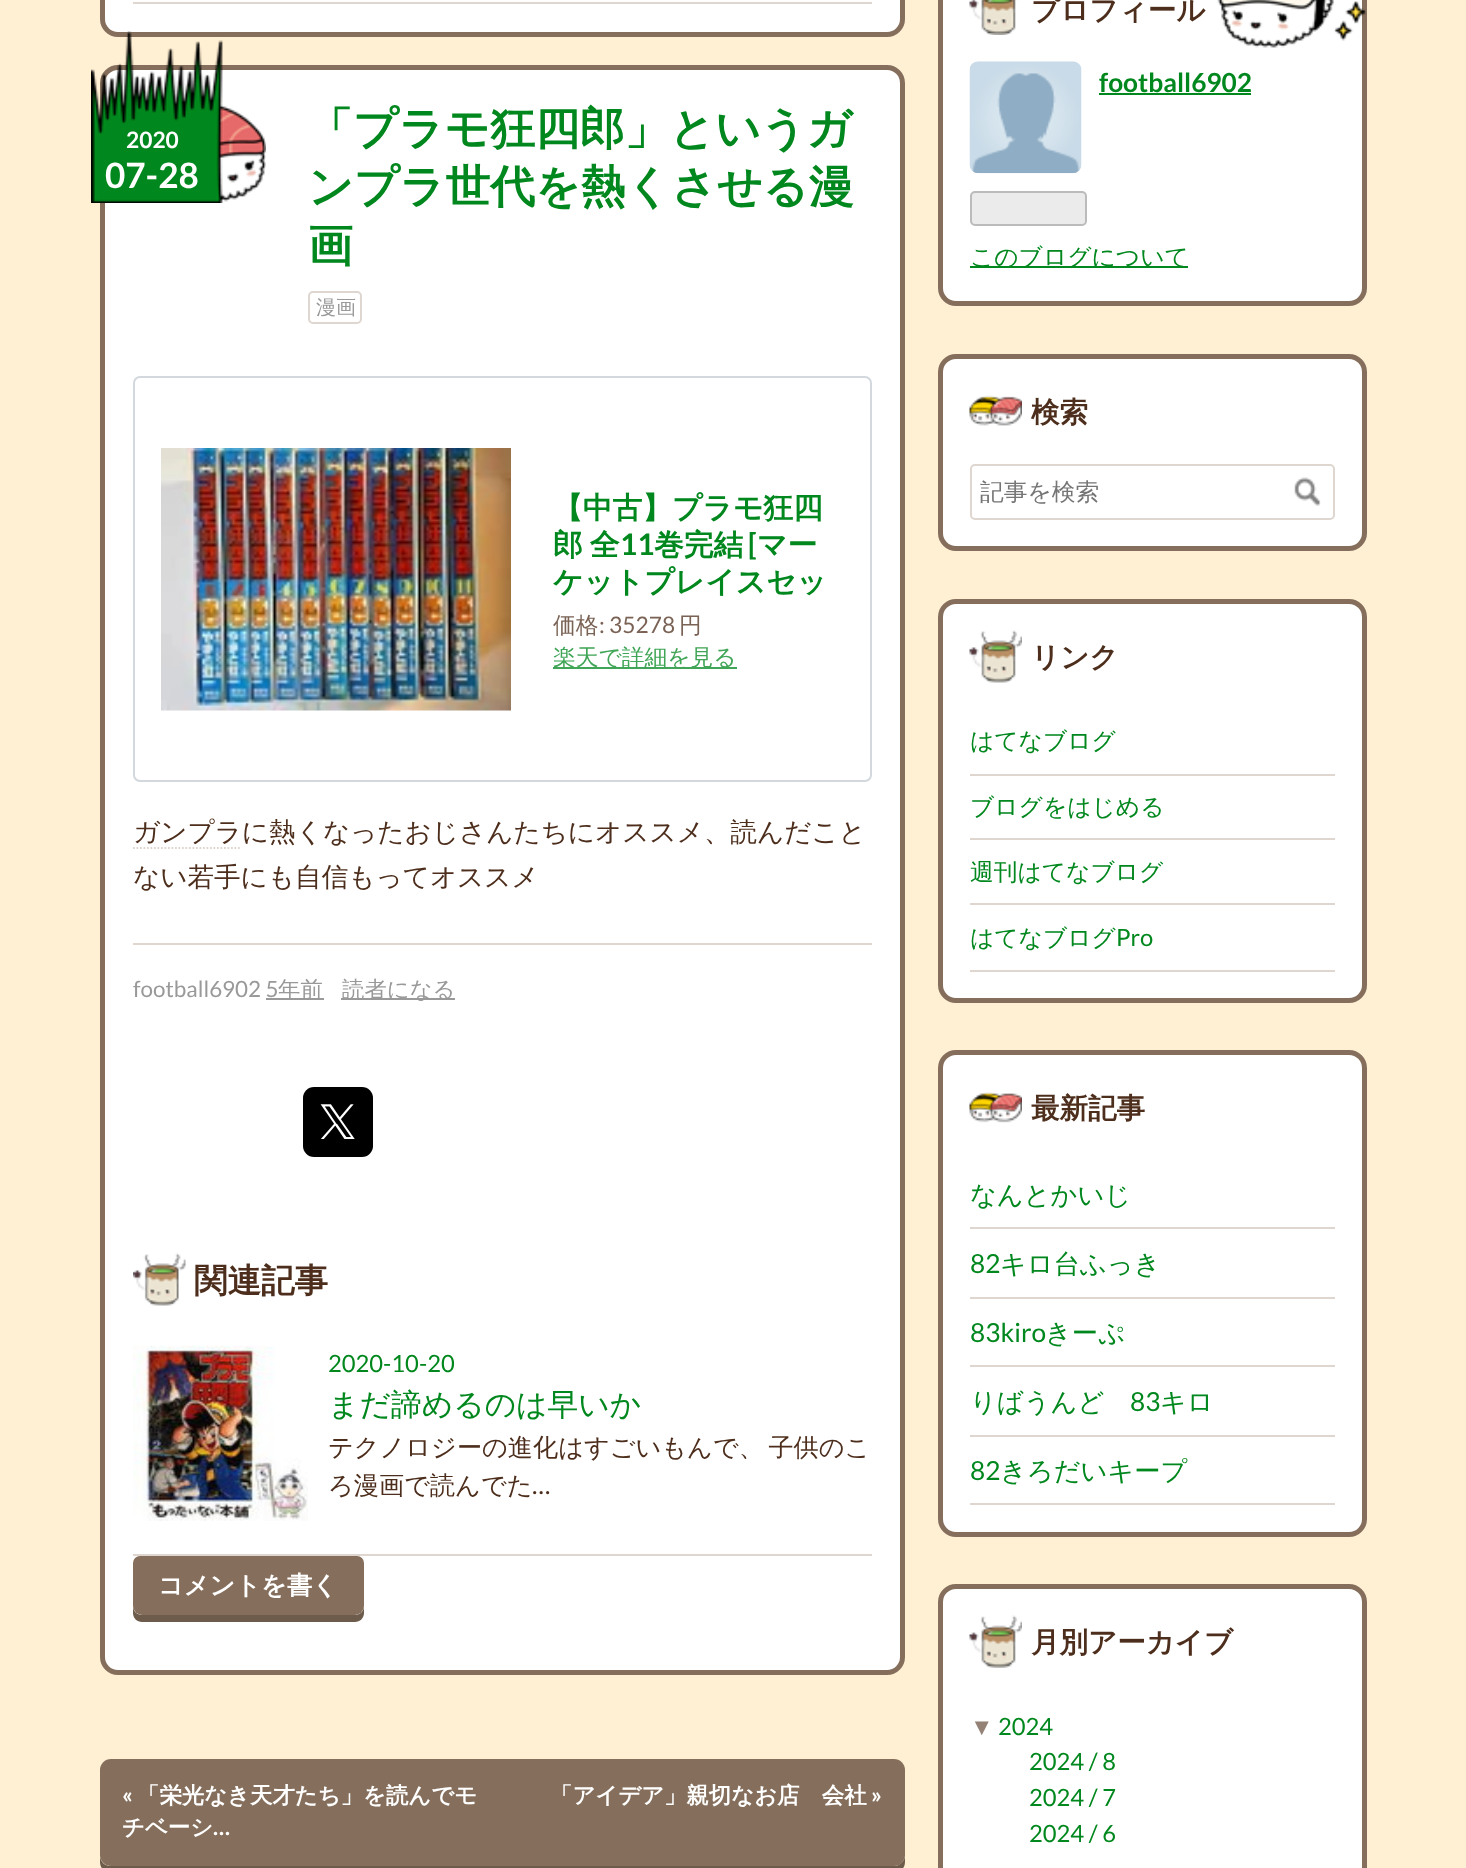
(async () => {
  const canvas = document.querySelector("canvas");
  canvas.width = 1466;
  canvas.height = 1868;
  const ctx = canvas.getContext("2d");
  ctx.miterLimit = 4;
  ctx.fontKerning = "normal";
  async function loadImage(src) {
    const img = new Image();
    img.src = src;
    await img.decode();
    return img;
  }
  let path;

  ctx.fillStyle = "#ffefd3";
  ctx.fillRect(0, 0, 1466, 1868);
  ctx.fillStyle = "#ffffff";
  ctx.beginPath();
  ctx.roundRect(102.5, -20.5, 800, 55, 15.5);
  ctx.fill();
  ctx.strokeStyle = "#856f5c";
  ctx.lineWidth = 5;
  ctx.stroke();
  ctx.fillStyle = "#ded6cf";
  ctx.fillRect(133, 2, 739, 2);
  ctx.fillStyle = "#ffffff";
  ctx.beginPath();
  ctx.roundRect(102.5, 67.5, 800, 1605, 15.5);
  ctx.fill();
  ctx.stroke();
  ctx.drawImage(await loadImage("img/1.png"), 91, 31, 175, 172);
  ctx.beginPath();
  ctx.roundRect(309, 292, 52, 31, 4);
  ctx.strokeStyle = "#ded6cf";
  ctx.lineWidth = 2;
  ctx.stroke();
  ctx.fillStyle = "#ded6cf";
  ctx.fillRect(133, 943, 739, 2);
  ctx.beginPath();
  ctx.roundRect(134, 377, 737, 404, 6);
  ctx.strokeStyle = "#d2d8dd";
  ctx.stroke();
  ctx.drawImage(await loadImage("img/2.png"), 161, 448, 350, 263);
  ctx.fillStyle = "#40a556";
  ctx.fillRect(553, 667, 184, 2);
  path = new Path2D("M133 848H241.5");
  ctx.strokeStyle = "#ded6cf";
  ctx.lineWidth = 1.8;
  ctx.setLineDash([1.75, 1.75]);
  ctx.stroke(path);
  ctx.fillStyle = "#999999";
  ctx.fillRect(266, 998, 58, 2);
  ctx.fillRect(341, 998, 114, 2);
  ctx.fillStyle = "#000000";
  ctx.beginPath();
  ctx.roundRect(303, 1087, 70, 70, 11);
  ctx.fill();
  ctx.drawImage(await loadImage("img/3.png"), 320, 1104, 35, 35);
  ctx.drawImage(await loadImage("img/4.png"), 133, 1253, 53, 53);
  ctx.fillStyle = "#ded6cf";
  ctx.fillRect(133, 1554, 739, 2);
  ctx.drawImage(await loadImage("img/5.png"), 133, 1345, 175, 176);
  ctx.fillStyle = "#6d5b4b";
  path = new Path2D("M133 1606V1613C133 1618 137 1622 142 1622H355C360 1622 364 1618 364 1613V1606C364 1611 360 1615 355 1615H142C137 1615 133 1611 133 1606Z");
  ctx.fill(path);
  ctx.fillStyle = "#856f5c";
  ctx.beginPath();
  ctx.roundRect(133, 1556, 231, 59, [7, 7, 9, 9]);
  ctx.fill();
  ctx.fillStyle = "#6d5b4b";
  path = new Path2D("M100 1857V1862C100 1868 105 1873 111 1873H894C900 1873 905 1868 905 1862V1775V1855C905 1861 900 1866 894 1866H110C105 1866 101 1862 100 1857Z");
  ctx.fill(path);
  ctx.fillStyle = "#856f5c";
  ctx.beginPath();
  ctx.roundRect(100, 1759, 805, 107, 11);
  ctx.fill();
  ctx.fillStyle = "#ffffff";
  ctx.beginPath();
  ctx.roundRect(940.5, -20.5, 424, 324, 15.5);
  ctx.fill();
  ctx.strokeStyle = "#856f5c";
  ctx.lineWidth = 5;
  ctx.setLineDash([]);
  ctx.stroke();
  ctx.drawImage(await loadImage("img/6.png"), 969, 0, 49, 35);
  ctx.drawImage(await loadImage("img/7.png"), 969, 61, 113, 113);
  ctx.fillStyle = "#00871d";
  ctx.fillRect(1099, 93, 152, 2);
  ctx.fillStyle = "#ebebeb";
  ctx.beginPath();
  ctx.roundRect(971, 192, 115, 33, 4);
  ctx.fill();
  ctx.strokeStyle = "#bbbbbb";
  ctx.lineWidth = 2;
  ctx.stroke();
  ctx.fillStyle = "#00871d";
  ctx.fillRect(970, 266, 218, 2);
  ctx.fillStyle = "#ffffff";
  ctx.beginPath();
  ctx.roundRect(940.5, 356.5, 424, 192, 15.5);
  ctx.fill();
  ctx.strokeStyle = "#856f5c";
  ctx.lineWidth = 5;
  ctx.stroke();
  ctx.drawImage(await loadImage("img/8.png"), 969, 395, 53, 31);
  ctx.beginPath();
  ctx.roundRect(971, 465, 363, 54, 4);
  ctx.strokeStyle = "#ded6cf";
  ctx.lineWidth = 2;
  ctx.stroke();
  ctx.drawImage(await loadImage("img/9.png"), 1294, 477, 27, 29);
  ctx.beginPath();
  ctx.roundRect(940.5, 601.5, 424, 399, 15.5);
  ctx.fill();
  ctx.strokeStyle = "#856f5c";
  ctx.lineWidth = 5;
  ctx.stroke();
  ctx.drawImage(await loadImage("img/10.png"), 969, 630, 53, 53);
  for (const [x, y, w, h, color] of [
    [970, 774, 365, 2, "#ded6cf"],
    [970, 838, 365, 2, "#ded6cf"],
    [970, 903, 365, 2, "#ded6cf"],
    [970, 970, 365, 2, "#ded6cf"],
  ]) {
    ctx.fillStyle = color;
    ctx.fillRect(x, y, w, h);
  }
  ctx.fillStyle = "#ffffff";
  ctx.beginPath();
  ctx.roundRect(940.5, 1052.5, 424, 482, 15.5);
  ctx.fill();
  ctx.stroke();
  ctx.drawImage(await loadImage("img/11.png"), 969, 1092, 53, 31);
  for (const [x, y, w, h, color] of [
    [970, 1227, 365, 2, "#ded6cf"],
    [970, 1297, 365, 2, "#ded6cf"],
    [970, 1365, 365, 2, "#ded6cf"],
    [970, 1435, 365, 2, "#ded6cf"],
    [970, 1503, 365, 2, "#ded6cf"],
  ]) {
    ctx.fillStyle = color;
    ctx.fillRect(x, y, w, h);
  }
  ctx.fillStyle = "#ffffff";
  ctx.beginPath();
  ctx.roundRect(940.5, 1586.5, 424, 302, 15.5);
  ctx.fill();
  ctx.stroke();
  ctx.drawImage(await loadImage("img/12.png"), 969, 1615, 53, 53);
  ctx.drawImage(await loadImage("img/13.png"), 1217, 0, 150, 48);
  ctx.font = "bold 22.75px Lato";
  ctx.fillText("2020", 126, 148);
  ctx.font = "bold 35px Lato";
  ctx.fillText("07-28", 105, 188);
  ctx.font = "bold 44.75px WenQuanYi Zen Hei";
  ctx.fillStyle = "#00871d";
  for (const [text, x, y] of [
    ["「プラモ狂四郎」というガ", 308, 144],
    ["ンプラ世代を熱くさせる漫", 308, 202],
    ["画", 308, 261],
  ]) {
    ctx.fillText(text, x, y);
  }
  ctx.font = "500 20px WenQuanYi Zen Hei";
  ctx.fillStyle = "#999999";
  ctx.fillText("漫画", 316, 314);
  ctx.font = "bold 29.75px WenQuanYi Zen Hei";
  ctx.fillStyle = "#00871d";
  ctx.fillText("【中古】プラモ狂四", 553, 518);
  ctx.wordSpacing = "-2px";
  ctx.fillText("郎 全", 553, 555);
  ctx.wordSpacing = "0px";
  ctx.font = "bold 29.75px Lato";
  ctx.fillText("11", 620, 555);
  ctx.font = "bold 29.75px WenQuanYi Zen Hei";
  ctx.fillText("巻完結", 654, 555);
  ctx.font = "bold 29.75px Lato";
  ctx.fillText("[", 748, 555);
  ctx.font = "bold 29.75px WenQuanYi Zen Hei";
  ctx.fillText("マー", 757, 555);
  ctx.fillText("ケットプレイスセッ", 553, 592);
  ctx.font = "500 22.75px WenQuanYi Zen Hei";
  ctx.fillStyle = "#7a6255";
  ctx.fillText("価格", 553, 633);
  ctx.font = "22.75px Lato";
  ctx.fillText(": 35278", 599, 633);
  ctx.font = "500 22.75px WenQuanYi Zen Hei";
  ctx.fillText("円", 679, 633);
  ctx.fillStyle = "#40a556";
  ctx.fillText("楽天で詳細を見る", 553, 665);
  ctx.font = "500 26.6px WenQuanYi Zen Hei";
  ctx.fillStyle = "#4d2e1c";
  ctx.fillText("ガンプラに熱くなったおじさんたちにオススメ、読んだこと", 133, 841);
  ctx.fillText("ない若手にも自信もってオススメ", 133, 886);
  ctx.font = "22.4px Lato";
  ctx.fillStyle = "#999999";
  ctx.fillText("football6902 5", 133, 997);
  ctx.font = "500 22.4px WenQuanYi Zen Hei";
  ctx.fillText("年前", 278, 997);
  ctx.fillText("読者になる", 342, 997);
  ctx.font = "bold 33.5px WenQuanYi Zen Hei";
  ctx.fillStyle = "#4d2e1c";
  ctx.fillText("関連記事", 194, 1292);
  ctx.font = "23.75px Lato";
  ctx.fillStyle = "#00871d";
  ctx.fillText("2020-10-20", 328, 1372);
  ctx.font = "500 30.75px WenQuanYi Zen Hei";
  ctx.fillText("まだ諦めるのは早いか", 328, 1415);
  ctx.wordSpacing = "-3px";
  ctx.font = "500 25.2px WenQuanYi Zen Hei";
  ctx.fillStyle = "#4d2e1c";
  ctx.fillText("テクノロジーの進化はすごいもんで、 子供のこ", 328, 1456);
  ctx.wordSpacing = "0px";
  ctx.fillText("ろ漫画で読んでた", 328, 1494);
  ctx.font = "25.2px Lato";
  ctx.fillText("…", 532, 1494);
  ctx.font = "bold 25.2px WenQuanYi Zen Hei";
  ctx.fillStyle = "#ffffff";
  ctx.fillText("コメントを書く", 158, 1594);
  ctx.font = "bold 22.4px Lato";
  ctx.fillText("«", 122, 1803);
  ctx.font = "bold 22.4px WenQuanYi Zen Hei";
  ctx.fillText("「栄光なき天才たち」を読んでモ", 137, 1803);
  ctx.fillText("チベーシ", 122, 1835);
  ctx.font = "bold 22.4px Lato";
  ctx.fillText("…", 213, 1835);
  ctx.font = "bold 22.4px WenQuanYi Zen Hei";
  ctx.fillText("「アイデア」親切なお店　会社", 550, 1803);
  ctx.font = "bold 22.4px Lato";
  ctx.fillText("»", 871, 1803);
  ctx.font = "bold 28.5px WenQuanYi Zen Hei";
  ctx.fillStyle = "#4d2e1c";
  ctx.fillText("プロフィール", 1031, 20);
  ctx.font = "bold 26.25px Lato";
  ctx.fillStyle = "#00871d";
  ctx.fillText("football6902", 1099, 92);
  ctx.font = "500 23.75px WenQuanYi Zen Hei";
  ctx.fillText("このブログについて", 970, 265);
  ctx.font = "bold 28.5px WenQuanYi Zen Hei";
  ctx.fillStyle = "#4d2e1c";
  ctx.fillText("検索", 1031, 422);
  ctx.font = "500 23.75px WenQuanYi Zen Hei";
  ctx.fillStyle = "#757575";
  ctx.fillText("記事を検索", 980, 500);
  ctx.font = "bold 28.5px WenQuanYi Zen Hei";
  ctx.fillStyle = "#4d2e1c";
  ctx.fillText("リンク", 1031, 667);
  ctx.font = "500 23.75px WenQuanYi Zen Hei";
  ctx.fillStyle = "#00871d";
  for (const [text, x, y] of [
    ["はてなブログ", 970, 749],
    ["ブログをはじめる", 970, 815],
    ["週刊はてなブログ", 970, 880],
    ["はてなブログ", 970, 946],
  ]) {
    ctx.fillText(text, x, y);
  }
  ctx.font = "23.75px Lato";
  ctx.fillText("Pro", 1116, 946);
  ctx.font = "bold 28.5px WenQuanYi Zen Hei";
  ctx.fillStyle = "#4d2e1c";
  ctx.fillText("最新記事", 1031, 1118);
  ctx.font = "500 26.25px WenQuanYi Zen Hei";
  ctx.fillStyle = "#00871d";
  ctx.fillText("なんとかいじ", 970, 1204);
  ctx.font = "26.25px Lato";
  ctx.fillText("82", 970, 1273);
  ctx.font = "500 26.25px WenQuanYi Zen Hei";
  ctx.fillText("キロ台ふっき", 1000, 1273);
  ctx.font = "26.25px Lato";
  ctx.fillText("83kiro", 970, 1342);
  ctx.font = "500 26.25px WenQuanYi Zen Hei";
  ctx.fillText("きーぷ", 1045, 1342);
  ctx.fillText("りばうんど", 970, 1411);
  ctx.font = "26.25px Lato";
  ctx.fillText("83", 1130, 1411);
  ctx.font = "500 26.25px WenQuanYi Zen Hei";
  ctx.fillText("キロ", 1160, 1411);
  ctx.font = "26.25px Lato";
  ctx.fillText("82", 970, 1480);
  ctx.font = "500 26.25px WenQuanYi Zen Hei";
  ctx.fillText("きろだいキープ", 1000, 1480);
  ctx.font = "bold 28.5px WenQuanYi Zen Hei";
  ctx.fillStyle = "#4d2e1c";
  ctx.fillText("月別アーカイブ", 1031, 1652);
  ctx.font = "23.75px Liberation Sans";
  ctx.fillStyle = "#948277";
  ctx.fillText("▼", 970, 1735);
  ctx.font = "23.75px Lato";
  ctx.fillStyle = "#00871d";
  for (const [text, x, y] of [
    ["2024", 998, 1735],
    ["2024 / 8", 1029, 1770],
    ["2024 / 7", 1029, 1806],
    ["2024 / 6", 1029, 1842],
  ]) {
    ctx.fillText(text, x, y);
  }
})();
